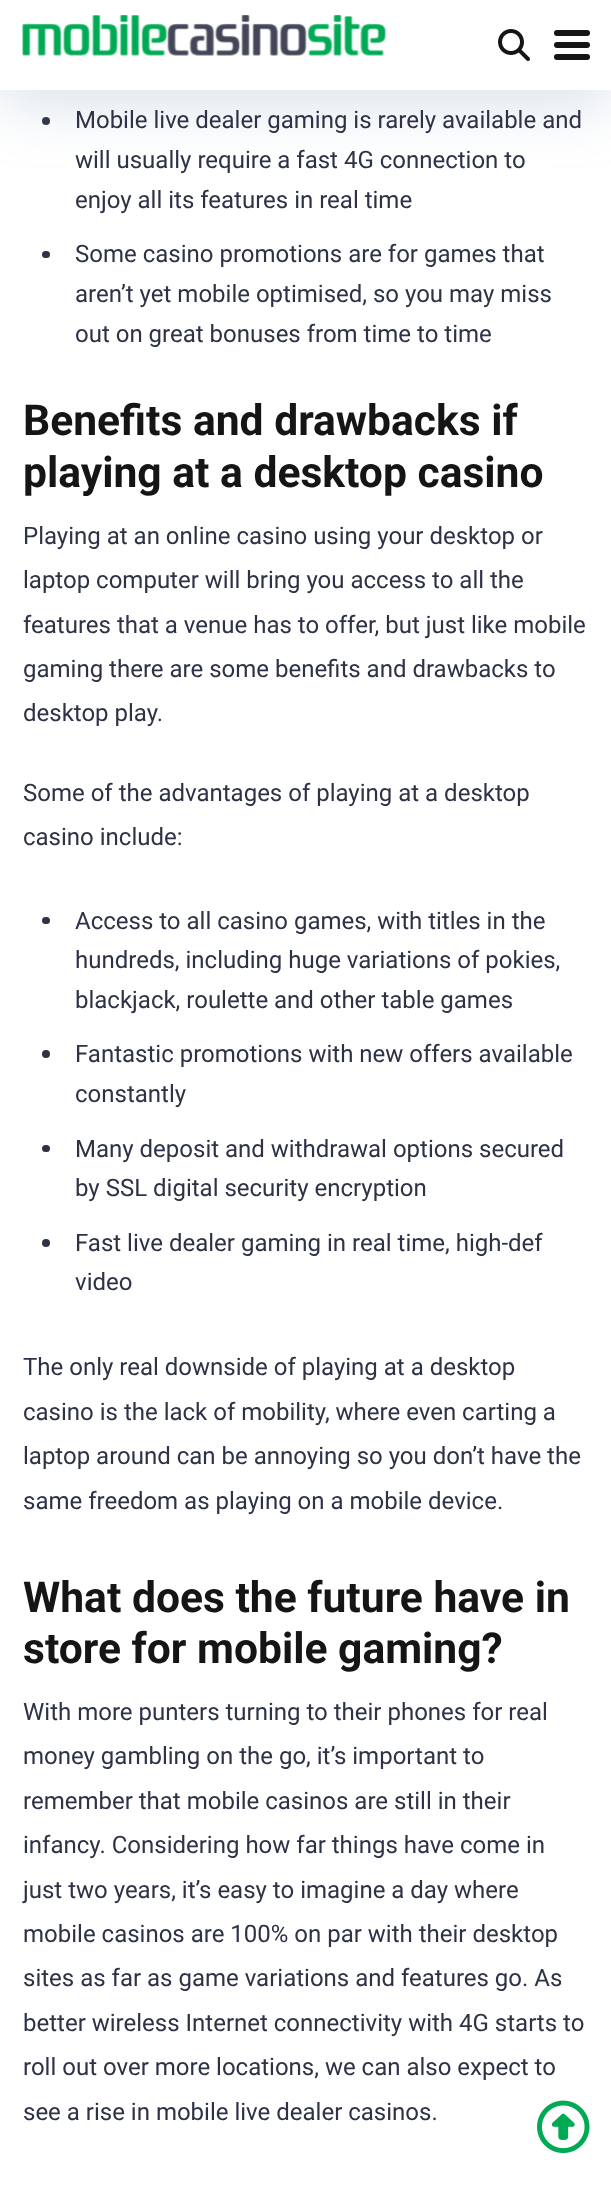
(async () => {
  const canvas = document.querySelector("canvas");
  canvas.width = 611;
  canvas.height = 2185;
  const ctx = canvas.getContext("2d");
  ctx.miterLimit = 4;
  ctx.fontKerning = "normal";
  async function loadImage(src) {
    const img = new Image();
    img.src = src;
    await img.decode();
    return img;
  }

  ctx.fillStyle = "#ffffff";
  ctx.fillRect(0, 0, 611, 2185);
  ctx.fillStyle = "#2e3246";
  ctx.beginPath();
  ctx.arc(46, 121, 4, 0, Math.PI * 2);
  ctx.fill();
  ctx.fillStyle = "rgba(109, 141, 173, 0.25)";
  ctx.filter = "blur(30px)";
  ctx.beginPath();
  ctx.rect(0, 15, 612, 90);
  ctx.fill();
  ctx.filter = "none";
  ctx.fillStyle = "#ffffff";
  ctx.fillRect(0, 0, 611, 90);
  ctx.drawImage(await loadImage("img/1.png"), 22, 15, 364, 41);
  ctx.drawImage(await loadImage("img/2.png"), 498, 29, 32, 32);
  ctx.fillStyle = "#151515";
  ctx.beginPath();
  ctx.roundRect(554, 30, 36, 6, 3);
  ctx.fill();
  ctx.beginPath();
  ctx.roundRect(554, 42, 36, 6, 3);
  ctx.fill();
  ctx.beginPath();
  ctx.roundRect(554, 54, 36, 6, 3);
  ctx.fill();
  ctx.fillStyle = "#2e3246";
  ctx.beginPath();
  ctx.roundRect(42, 251, 8, 7, 3.5);
  ctx.fill();
  ctx.beginPath();
  ctx.roundRect(42, 917, 8, 7, 3.5);
  ctx.fill();
  ctx.beginPath();
  ctx.arc(46, 1054, 4, 0, Math.PI * 2);
  ctx.fill();
  ctx.beginPath();
  ctx.roundRect(42, 1145, 8, 7, 3.5);
  ctx.fill();
  ctx.beginPath();
  ctx.arc(46, 1243, 4, 0, Math.PI * 2);
  ctx.fill();
  ctx.drawImage(await loadImage("img/3.png"), 537, 2100, 53, 54);
  ctx.font = "24px Roboto";
  for (const [text, x, y] of [
    ["Mobile live dealer gaming is rarely available and", 75, 128],
    ["will usually require a fast 4G connection to", 75, 168],
    ["enjoy all its features in real time", 75, 208],
    ["Some casino promotions are for games that", 75, 262],
    ["aren’t yet mobile optimised, so you may miss", 75, 302],
    ["out on great bonuses from time to time", 75, 342],
  ]) {
    ctx.fillText(text, x, y);
  }
  ctx.font = "bold 42.6px Roboto";
  ctx.fillStyle = "#151515";
  ctx.fillText("Benefits and drawbacks if", 23, 435);
  ctx.fillText("playing at a desktop casino", 23, 487);
  ctx.font = "24px Roboto";
  ctx.fillStyle = "#2e3246";
  for (const [text, x, y] of [
    ["Playing at an online casino using your desktop or", 23, 544],
    ["laptop computer will bring you access to all the", 23, 588],
    ["features that a venue has to offer, but just like mobile", 23, 633],
    ["gaming there are some benefits and drawbacks to", 23, 677],
    ["desktop play.", 23, 721],
    ["Some of the advantages of playing at a desktop", 23, 801],
    ["casino include:", 23, 845],
    ["Access to all casino games, with titles in the", 75, 929],
    ["hundreds, including huge variations of pokies,", 75, 968],
    ["blackjack, roulette and other table games", 75, 1008],
    ["Fantastic promotions with new offers available", 75, 1062],
    ["constantly", 75, 1102],
    ["Many deposit and withdrawal options secured", 75, 1157],
    ["by SSL digital security encryption", 75, 1196],
    ["Fast live dealer gaming in real time, high-def", 75, 1251],
    ["video", 75, 1290],
    ["The only real downside of playing at a desktop", 23, 1375],
    ["casino is the lack of mobility, where even carting a", 23, 1420],
    ["laptop around can be annoying so you don’t have the", 23, 1464],
    ["same freedom as playing on a mobile device.", 23, 1509],
  ]) {
    ctx.fillText(text, x, y);
  }
  ctx.font = "bold 42.6px Roboto";
  ctx.fillStyle = "#151515";
  ctx.fillText("What does the future have in", 23, 1612);
  ctx.fillText("store for mobile gaming?", 23, 1663);
  ctx.font = "24px Roboto";
  ctx.fillStyle = "#2e3246";
  for (const [text, x, y] of [
    ["With more punters turning to their phones for real", 23, 1720],
    ["money gambling on the go, it’s important to", 23, 1764],
    ["remember that mobile casinos are still in their", 23, 1809],
    ["infancy. Considering how far things have come in", 23, 1853],
    ["just two years, it’s easy to imagine a day where", 23, 1898],
    ["mobile casinos are 100% on par with their desktop", 23, 1942],
    ["sites as far as game variations and features go. As", 23, 1986],
    ["better wireless Internet connectivity with 4G starts to", 23, 2031],
    ["roll out over more locations, we can also expect to", 23, 2075],
    ["see a rise in mobile live dealer casinos.", 23, 2120],
  ]) {
    ctx.fillText(text, x, y);
  }
})();
